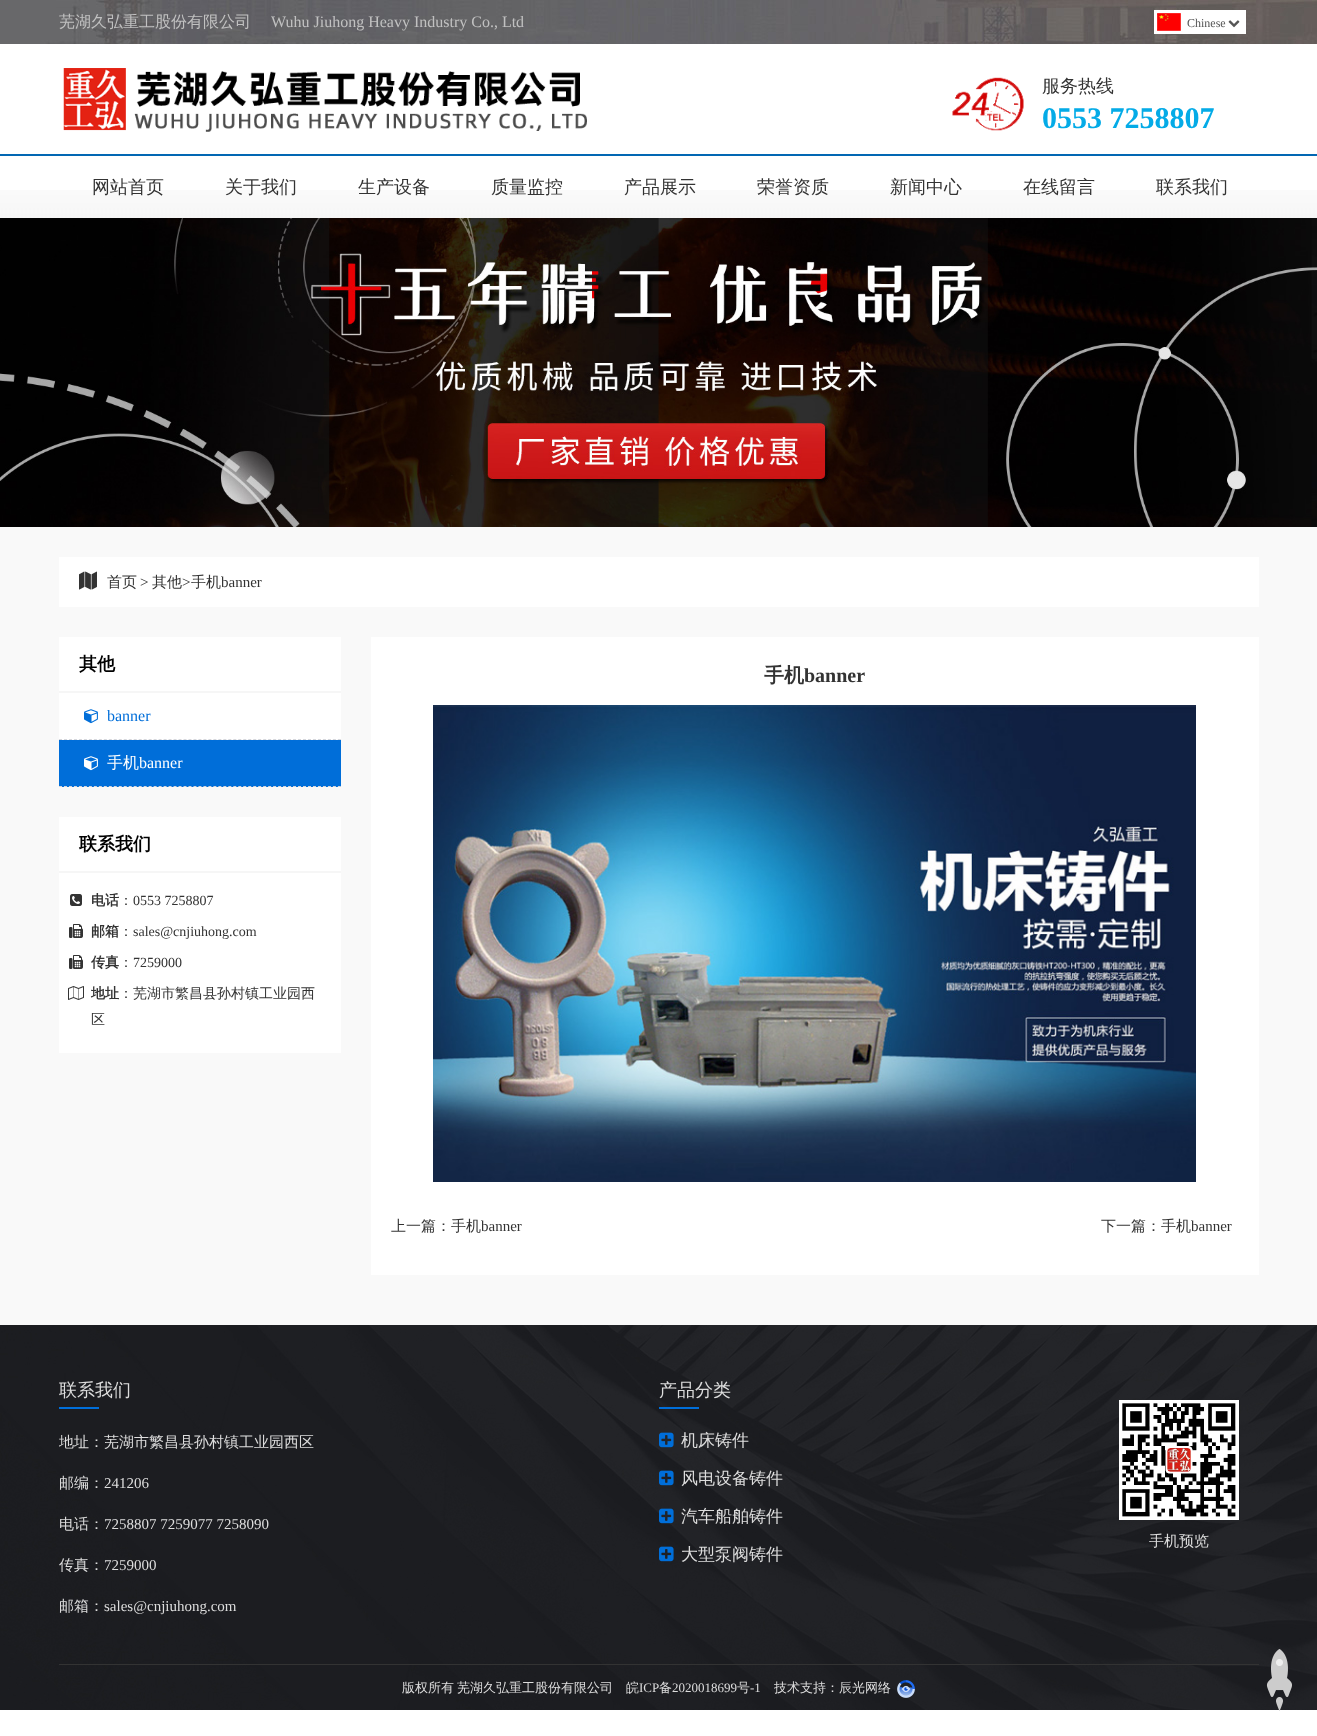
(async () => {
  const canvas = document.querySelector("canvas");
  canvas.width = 1317;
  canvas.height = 1736;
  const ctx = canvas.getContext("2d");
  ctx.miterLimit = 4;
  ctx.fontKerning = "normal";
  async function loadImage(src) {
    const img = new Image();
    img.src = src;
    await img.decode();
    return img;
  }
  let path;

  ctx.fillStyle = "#ffffff";
  ctx.fillRect(0, 0, 1317, 1736);
  ctx.drawImage(await loadImage("img/1.png"), 0, 0, 1317, 44);
  ctx.fillRect(1154, 10, 92, 24);
  ctx.drawImage(await loadImage("img/2.png"), 1157, 13, 24, 18);
  ctx.drawImage(await loadImage("img/3.png"), 1228, 20, 12, 8);
  ctx.drawImage(await loadImage("img/4.png"), 63, 68, 524, 64);
  ctx.drawImage(await loadImage("img/5.png"), 952, 77, 72, 54);
  ctx.drawImage(await loadImage("img/6.png"), 0, 190, 1317, 28);
  ctx.fillStyle = "#0267b3";
  ctx.fillRect(0, 154, 1317, 2);
  ctx.drawImage(await loadImage("img/7.png"), 0, 218, 1317, 309);
  ctx.fillStyle = "#f9f9f9";
  ctx.fillRect(0, 527, 1317, 798);
  ctx.fillStyle = "#ffffff";
  ctx.fillRect(59, 557, 1200, 50);
  ctx.drawImage(await loadImage("img/8.png"), 79, 571, 18, 19);
  ctx.fillRect(59, 637, 282, 103);
  ctx.fillStyle = "#f6f6f6";
  ctx.fillRect(59, 691, 282, 2);
  path = new Path2D("M59 739.5H341");
  ctx.strokeStyle = "#d6d7dc";
  ctx.setLineDash([3, 1.98]);
  ctx.stroke(path);
  ctx.drawImage(await loadImage("img/9.png"), 84, 709, 14, 15);
  ctx.fillStyle = "#006ed9";
  ctx.fillRect(59, 740, 282, 47);
  path = new Path2D("M59 786.5H341");
  ctx.stroke(path);
  ctx.drawImage(await loadImage("img/10.png"), 84, 756, 14, 15);
  ctx.fillStyle = "#ffffff";
  ctx.fillRect(59, 817, 282, 236);
  ctx.fillStyle = "#f6f6f6";
  ctx.fillRect(59, 871, 282, 2);
  ctx.drawImage(await loadImage("img/11.png"), 70, 894, 12, 12);
  ctx.drawImage(await loadImage("img/12.png"), 69, 924, 14, 14);
  ctx.drawImage(await loadImage("img/12.png"), 69, 955, 14, 14);
  ctx.drawImage(await loadImage("img/13.png"), 68, 986, 16, 14);
  ctx.fillStyle = "#ffffff";
  ctx.fillRect(371, 637, 888, 638);
  ctx.drawImage(await loadImage("img/14.png"), 433, 705, 763, 477);
  ctx.drawImage(await loadImage("img/15.png"), 0, 1325, 1317, 385);
  ctx.fillStyle = "#006ed9";
  ctx.fillRect(59, 1407, 40, 2);
  ctx.fillRect(659, 1407, 40, 2);
  ctx.drawImage(await loadImage("img/16.png"), 659, 1432, 15, 16);
  ctx.drawImage(await loadImage("img/17.png"), 659, 1470, 15, 16);
  ctx.drawImage(await loadImage("img/18.png"), 659, 1508, 15, 16);
  ctx.drawImage(await loadImage("img/19.png"), 659, 1546, 15, 16);
  ctx.drawImage(await loadImage("img/20.png"), 1119, 1400, 120, 120);
  ctx.fillStyle = "#333333";
  ctx.fillRect(59, 1664, 1200, 1);
  ctx.drawImage(await loadImage("img/21.png"), 897, 1680, 18, 18);
  ctx.drawImage(await loadImage("img/22.png"), 1266, 1649, 26, 62);
  ctx.font = "500 16px WenQuanYi Zen Hei";
  ctx.fillStyle = "#c1c1c1";
  ctx.fillText("芜湖久弘重工股份有限公司", 59, 27);
  ctx.font = "16px Liberation Serif";
  ctx.fillText("Wuhu Jiuhong Heavy Industry Co., Ltd", 271, 27);
  ctx.font = "12px Liberation Serif";
  ctx.fillStyle = "#555555";
  ctx.fillText("Chinese", 1187, 27);
  ctx.font = "500 18px WenQuanYi Zen Hei";
  ctx.fillStyle = "#333333";
  ctx.fillText("服务热线", 1042, 92);
  ctx.font = "bold 30px Liberation Serif";
  ctx.fillStyle = "#04abe7";
  ctx.fillText("0553 7258807", 1042, 128);
  ctx.font = "500 18px WenQuanYi Zen Hei";
  ctx.fillStyle = "#333333";
  for (const [text, x, y] of [
    ["网站首页", 92, 193],
    ["关于我们", 225, 193],
    ["生产设备", 358, 193],
    ["质量监控", 491, 193],
    ["产品展示", 624, 193],
    ["荣誉资质", 757, 193],
    ["新闻中心", 890, 193],
    ["在线留言", 1023, 193],
    ["联系我们", 1156, 193],
  ]) {
    ctx.fillText(text, x, y);
  }
  ctx.font = "500 15px WenQuanYi Zen Hei";
  ctx.fillText("首页", 107, 587);
  ctx.font = "15px Liberation Serif";
  ctx.fillText(">", 140, 587);
  ctx.font = "500 15px WenQuanYi Zen Hei";
  ctx.fillText("其他", 152, 587);
  ctx.font = "15px Liberation Serif";
  ctx.fillText(">", 182, 587);
  ctx.font = "500 15px WenQuanYi Zen Hei";
  ctx.fillText("手机", 191, 587);
  ctx.font = "15px Liberation Serif";
  ctx.fillText("banner", 221, 587);
  ctx.font = "bold 18px WenQuanYi Zen Hei";
  ctx.fillStyle = "#000000";
  ctx.fillText("其他", 79, 670);
  ctx.font = "16px Liberation Serif";
  ctx.fillStyle = "#006ed9";
  ctx.fillText("banner", 107, 721);
  ctx.font = "500 16px WenQuanYi Zen Hei";
  ctx.fillStyle = "#ffffff";
  ctx.fillText("手机", 107, 768);
  ctx.font = "16px Liberation Serif";
  ctx.fillText("banner", 139, 768);
  ctx.font = "bold 18px WenQuanYi Zen Hei";
  ctx.fillStyle = "#000000";
  ctx.fillText("联系我们", 79, 850);
  ctx.font = "bold 14px WenQuanYi Zen Hei";
  ctx.fillStyle = "#333333";
  ctx.fillText("电话", 91, 905);
  ctx.font = "500 14px WenQuanYi Zen Hei";
  ctx.fillText("：", 119, 905);
  ctx.font = "14px Liberation Serif";
  ctx.fillText("0553 7258807", 133, 905);
  ctx.font = "bold 14px WenQuanYi Zen Hei";
  ctx.fillText("邮箱", 91, 936);
  ctx.font = "500 14px WenQuanYi Zen Hei";
  ctx.fillText("：", 119, 936);
  ctx.font = "14px Liberation Serif";
  ctx.fillText("sales@cnjiuhong.com", 133, 936);
  ctx.font = "bold 14px WenQuanYi Zen Hei";
  ctx.fillText("传真", 91, 967);
  ctx.font = "500 14px WenQuanYi Zen Hei";
  ctx.fillText("：", 119, 967);
  ctx.font = "14px Liberation Serif";
  ctx.fillText("7259000", 133, 967);
  ctx.font = "bold 14px WenQuanYi Zen Hei";
  ctx.fillText("地址", 91, 998);
  ctx.font = "500 14px WenQuanYi Zen Hei";
  ctx.fillText("：芜湖市繁昌县孙村镇工业园西", 119, 998);
  ctx.fillText("区", 91, 1024);
  ctx.font = "bold 20px WenQuanYi Zen Hei";
  ctx.fillText("手机", 764, 682);
  ctx.font = "bold 20px Liberation Serif";
  ctx.fillText("banner", 804, 682);
  ctx.font = "500 15px WenQuanYi Zen Hei";
  ctx.fillText("上一篇：手机", 391, 1231);
  ctx.font = "15px Liberation Serif";
  ctx.fillText("banner", 481, 1231);
  ctx.font = "500 15px WenQuanYi Zen Hei";
  ctx.fillText("下一篇：手机", 1101, 1231);
  ctx.font = "15px Liberation Serif";
  ctx.fillText("banner", 1191, 1231);
  ctx.font = "500 18px WenQuanYi Zen Hei";
  ctx.fillStyle = "#dddddd";
  ctx.fillText("联系我们", 59, 1396);
  ctx.font = "500 15px WenQuanYi Zen Hei";
  ctx.fillText("地址：芜湖市繁昌县孙村镇工业园西区", 59, 1447);
  ctx.fillText("邮编：", 59, 1488);
  ctx.font = "15px Liberation Serif";
  ctx.fillText("241206", 104, 1488);
  ctx.font = "500 15px WenQuanYi Zen Hei";
  ctx.fillText("电话：", 59, 1529);
  ctx.font = "15px Liberation Serif";
  ctx.fillText("7258807 7259077 7258090", 104, 1529);
  ctx.font = "500 15px WenQuanYi Zen Hei";
  ctx.fillText("传真：", 59, 1570);
  ctx.font = "15px Liberation Serif";
  ctx.fillText("7259000", 104, 1570);
  ctx.font = "500 15px WenQuanYi Zen Hei";
  ctx.fillText("邮箱：", 59, 1611);
  ctx.font = "15px Liberation Serif";
  ctx.fillText("sales@cnjiuhong.com", 104, 1611);
  ctx.font = "500 18px WenQuanYi Zen Hei";
  ctx.fillText("产品分类", 659, 1396);
  ctx.font = "500 17px WenQuanYi Zen Hei";
  for (const [text, x, y] of [
    ["机床铸件", 681, 1446],
    ["风电设备铸件", 681, 1484],
    ["汽车船舶铸件", 681, 1522],
    ["大型泵阀铸件", 681, 1560],
  ]) {
    ctx.fillText(text, x, y);
  }
  ctx.font = "500 15px WenQuanYi Zen Hei";
  ctx.fillText("手机预览", 1149, 1546);
  ctx.wordSpacing = "-1px";
  ctx.font = "500 13px WenQuanYi Zen Hei";
  ctx.fillText("版权所有 芜湖久弘重工股份有限公司", 402, 1692);
  ctx.wordSpacing = "0px";
  ctx.fillText("皖", 626, 1692);
  ctx.font = "13px Liberation Serif";
  ctx.fillText("ICP", 639, 1692);
  ctx.font = "500 13px WenQuanYi Zen Hei";
  ctx.fillText("备", 659, 1692);
  ctx.font = "13px Liberation Serif";
  ctx.fillText("2020018699", 672, 1692);
  ctx.font = "500 13px WenQuanYi Zen Hei";
  ctx.fillText("号", 737, 1692);
  ctx.font = "13px Liberation Serif";
  ctx.fillText("-1", 750, 1692);
  ctx.font = "500 13px WenQuanYi Zen Hei";
  ctx.fillText("技术支持：辰光网络", 774, 1692);
})();
